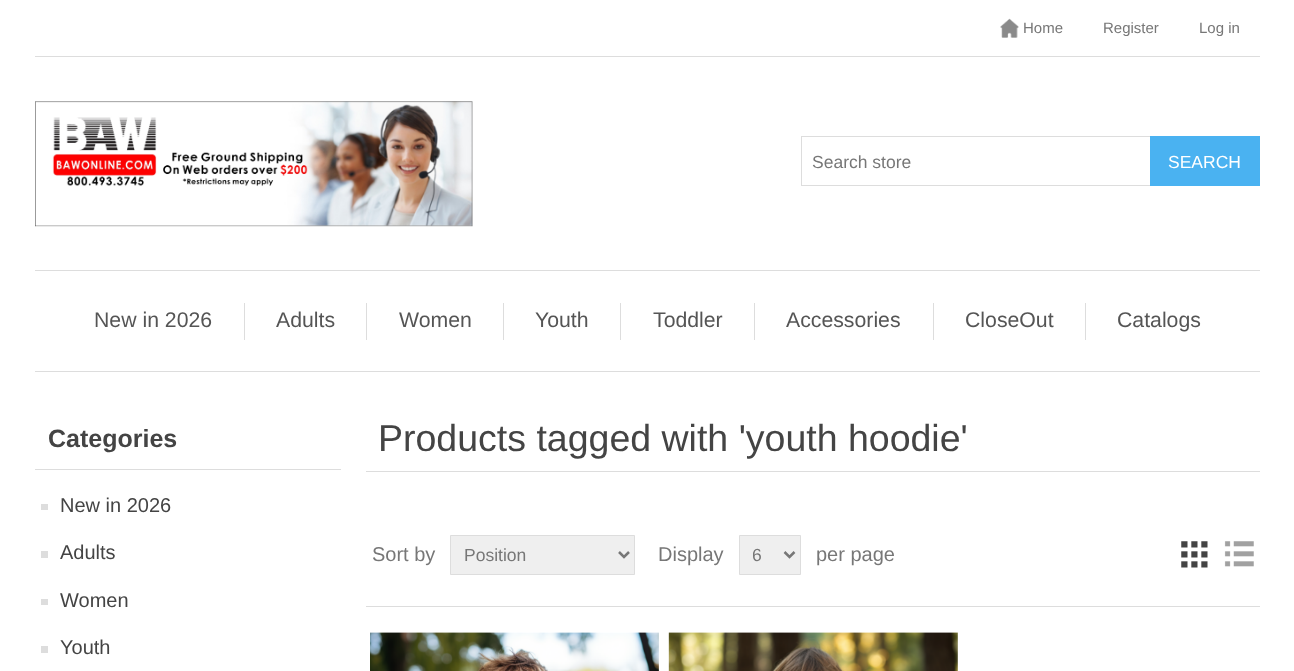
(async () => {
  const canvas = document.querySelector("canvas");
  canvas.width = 1294;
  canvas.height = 671;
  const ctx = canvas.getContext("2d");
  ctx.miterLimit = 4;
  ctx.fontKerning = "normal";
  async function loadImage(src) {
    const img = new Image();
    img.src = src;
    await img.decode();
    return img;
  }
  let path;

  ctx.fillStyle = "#ffffff";
  ctx.fillRect(0, 0, 1294, 671);
  ctx.fillStyle = "#dddddd";
  ctx.fillRect(35, 56, 1225, 1);
  ctx.drawImage(await loadImage("img/1.png"), 1000, 18, 19, 20);
  ctx.drawImage(await loadImage("img/2.png"), 35, 101, 438, 126);
  ctx.strokeStyle = "#dddddd";
  ctx.strokeRect(801.5, 136.5, 349, 49);
  for (const [x, y, w, h, color] of [
    [1150, 136, 110, 50, "#4ab2f1"],
    [35, 270, 1225, 1, "#dddddd"],
    [35, 371, 1225, 1, "#dddddd"],
    [244, 303, 1, 37, "#dddddd"],
    [366, 303, 1, 37, "#dddddd"],
    [503, 303, 1, 37, "#dddddd"],
    [620, 303, 1, 37, "#dddddd"],
    [754, 303, 1, 37, "#dddddd"],
    [933, 303, 1, 37, "#dddddd"],
    [1085, 303, 1, 37, "#dddddd"],
    [35, 469, 306, 1, "#dddddd"],
    [41, 504, 7, 6, "#dddddd"],
    [41, 551, 7, 7, "#dddddd"],
    [41, 599, 7, 6, "#dddddd"],
    [41, 646, 7, 7, "#dddddd"],
    [366, 471, 894, 1, "#dddddd"],
    [366, 606, 894, 1, "#dddddd"],
  ]) {
    ctx.fillStyle = color;
    ctx.fillRect(x, y, w, h);
  }
  ctx.fillStyle = "#efefef";
  ctx.beginPath();
  ctx.rect(450.5, 535.5, 184, 39);
  ctx.fill();
  ctx.stroke();
  path = new Path2D("M619 552L624 557L629 552");
  ctx.strokeStyle = "#777777";
  ctx.lineWidth = 2.5;
  ctx.stroke(path);
  ctx.beginPath();
  ctx.rect(739.5, 535.5, 61, 39);
  ctx.fill();
  ctx.strokeStyle = "#dddddd";
  ctx.lineWidth = 1;
  ctx.stroke();
  path = new Path2D("M784.5 552L789.5 557L794.5 552");
  ctx.strokeStyle = "#777777";
  ctx.lineWidth = 2.5;
  ctx.stroke(path);
  ctx.drawImage(await loadImage("img/3.png"), 1181, 541, 27, 27);
  ctx.drawImage(await loadImage("img/4.png"), 1224, 541, 30, 26);
  ctx.drawImage(await loadImage("img/5.png"), 370, 632, 289, 39);
  ctx.drawImage(await loadImage("img/6.png"), 668, 632, 290, 39);
  ctx.font = "15px Liberation Sans";
  ctx.fillStyle = "#777777";
  for (const [text, x, y] of [
    ["Home", 1023, 33],
    ["Register", 1103, 33],
    ["Log in", 1199, 33],
  ]) {
    ctx.fillText(text, x, y);
  }
  ctx.font = "17.5px Liberation Sans";
  ctx.fillText("Search store", 812, 168);
  ctx.fillStyle = "#ffffff";
  ctx.fillText("SEARCH", 1168, 168);
  ctx.font = "21.25px Liberation Sans";
  ctx.fillStyle = "#555555";
  for (const [text, x, y] of [
    ["New in 2026", 94, 327],
    ["Adults", 276, 327],
    ["Women", 399, 327],
    ["Youth", 535, 327],
    ["Toddler", 653, 327],
    ["Accessories", 786, 327],
    ["CloseOut", 965, 327],
    ["Catalogs", 1117, 327],
  ]) {
    ctx.fillText(text, x, y);
  }
  ctx.font = "bold 25px Liberation Sans";
  ctx.fillStyle = "#444444";
  ctx.fillText("Categories", 48, 447);
  ctx.font = "20px Liberation Sans";
  for (const [text, x, y] of [
    ["New in 2026", 60, 512],
    ["Adults", 60, 559],
    ["Women", 60, 607],
    ["Youth", 60, 654],
  ]) {
    ctx.fillText(text, x, y);
  }
  ctx.font = "37.5px Liberation Sans";
  ctx.fillText("Products tagged with 'youth hoodie'", 378, 451);
  ctx.font = "20px Liberation Sans";
  ctx.fillStyle = "#777777";
  ctx.fillText("Sort by", 372, 561);
  ctx.font = "17.5px Liberation Sans";
  ctx.fillText("Position", 464, 561);
  ctx.font = "20px Liberation Sans";
  ctx.fillText("Display", 658, 561);
  ctx.save();
  ctx.beginPath();
  ctx.rect(753, 544, 20, 22);
  ctx.clip();
  ctx.font = "17.5px Liberation Sans";
  ctx.fillText("6", 752, 561);
  ctx.restore();
  ctx.fillText("per page", 816, 561);
})();
